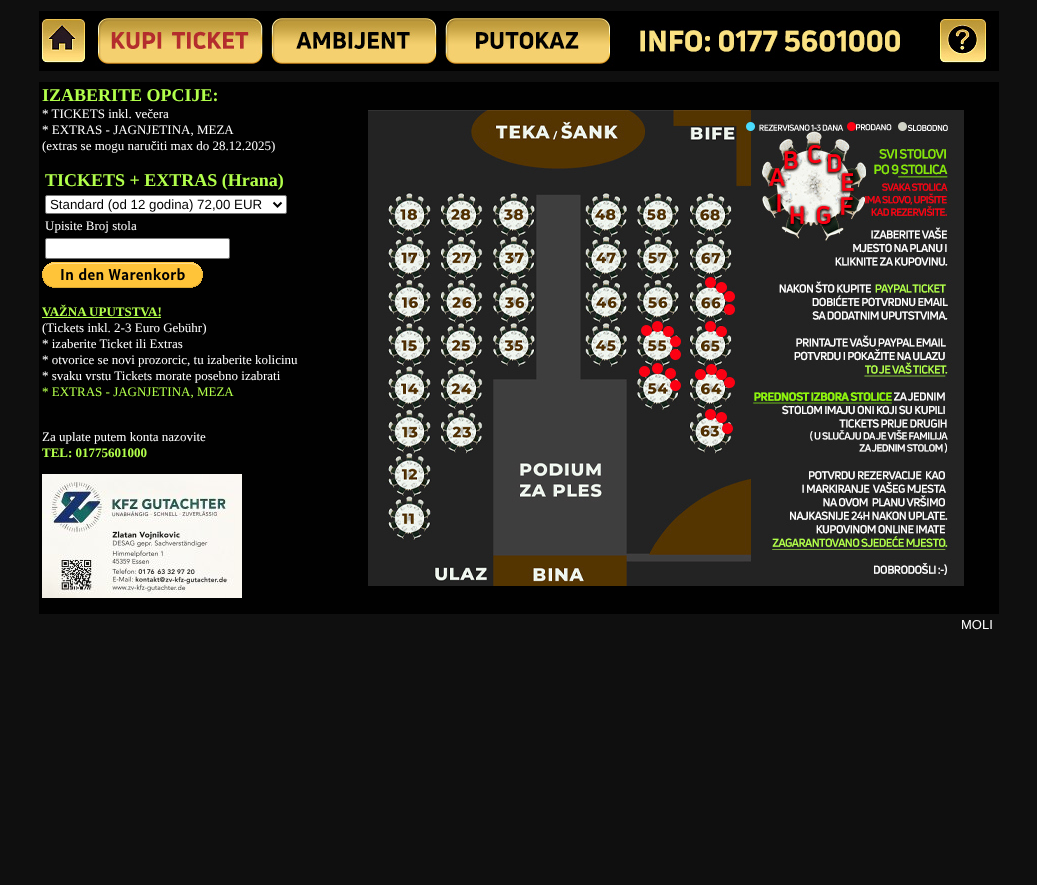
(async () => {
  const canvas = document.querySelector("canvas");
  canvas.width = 1037;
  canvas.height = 885;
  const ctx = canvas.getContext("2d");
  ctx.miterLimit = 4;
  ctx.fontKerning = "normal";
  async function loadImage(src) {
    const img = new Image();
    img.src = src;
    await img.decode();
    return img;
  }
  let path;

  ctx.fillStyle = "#0f0f0f";
  ctx.fillRect(0, 0, 1037, 885);
  ctx.drawImage(await loadImage("img/1.png"), 39, 11, 960, 60);
  ctx.fillStyle = "#010101";
  ctx.fillRect(39, 82, 960, 532);
  ctx.fillStyle = "#ffffff";
  ctx.beginPath();
  ctx.roundRect(45.5, 195.5, 241, 18, 1.5);
  ctx.fill();
  ctx.strokeStyle = "#767676";
  ctx.stroke();
  path = new Path2D("M273.5 202.5L277.5 206.5L281.5 202.5");
  ctx.strokeStyle = "#000000";
  ctx.lineWidth = 2;
  ctx.stroke(path);
  ctx.beginPath();
  ctx.roundRect(45.5, 238.5, 184, 20, 1.5);
  ctx.fill();
  ctx.strokeStyle = "#767676";
  ctx.lineWidth = 1;
  ctx.stroke();
  ctx.drawImage(await loadImage("img/2.png"), 42, 262, 161, 26);
  ctx.fillStyle = "#b2ff4b";
  ctx.fillRect(42, 317, 119, 1);
  ctx.drawImage(await loadImage("img/3.png"), 42, 474, 200, 124);
  ctx.drawImage(await loadImage("img/4.png"), 368, 110, 596, 476);
  ctx.font = "bold 18px Liberation Serif";
  ctx.fillText("IZABERITE OPCIJE:", 42, 101);
  ctx.font = "13px Liberation Serif";
  ctx.fillStyle = "#ffffff";
  for (const [text, x, y] of [
    ["* TICKETS inkl. večera", 42, 118],
    ["* EXTRAS - JAGNJETINA, MEZA", 42, 134],
    ["(extras se mogu naručiti max do 28.12.2025)", 42, 150],
  ]) {
    ctx.fillText(text, x, y);
  }
  ctx.font = "bold 18px Liberation Serif";
  ctx.fillStyle = "#b2ff4b";
  ctx.fillText("TICKETS + EXTRAS (Hrana)", 45, 186);
  ctx.font = "13.3px Liberation Sans";
  ctx.fillStyle = "#000000";
  ctx.fillText("Standard (od 12 godina) 72,00 EUR", 50, 209);
  ctx.font = "13px Liberation Serif";
  ctx.fillStyle = "#ffffff";
  ctx.fillText("Upisite Broj stola", 45, 230);
  ctx.font = "bold 13px Liberation Serif";
  ctx.fillStyle = "#b2ff4b";
  ctx.fillText("VAŽNA UPUTSTVA!", 42, 316);
  ctx.font = "13px Liberation Serif";
  ctx.fillStyle = "#ffffff";
  for (const [text, x, y] of [
    ["(Tickets inkl. 2-3 Euro Gebühr)", 42, 332],
    ["* izaberite Ticket ili Extras", 42, 348],
    ["* otvorice se novi prozorcic, tu izaberite kolicinu", 42, 364],
    ["* svaku vrstu Tickets morate posebno izabrati", 42, 380],
  ]) {
    ctx.fillText(text, x, y);
  }
  ctx.fillStyle = "#b2ff4b";
  ctx.fillText("* EXTRAS - JAGNJETINA, MEZA", 42, 396);
  ctx.fillStyle = "#ffffff";
  ctx.fillText("Za uplate putem konta nazovite", 42, 441);
  ctx.font = "bold 13px Liberation Serif";
  ctx.fillStyle = "#b2ff4b";
  ctx.fillText("TEL: 01775601000", 42, 457);
  ctx.font = "13px Liberation Sans";
  ctx.fillStyle = "#ffffff";
  ctx.fillText("MOLI", 961, 629);
})();
